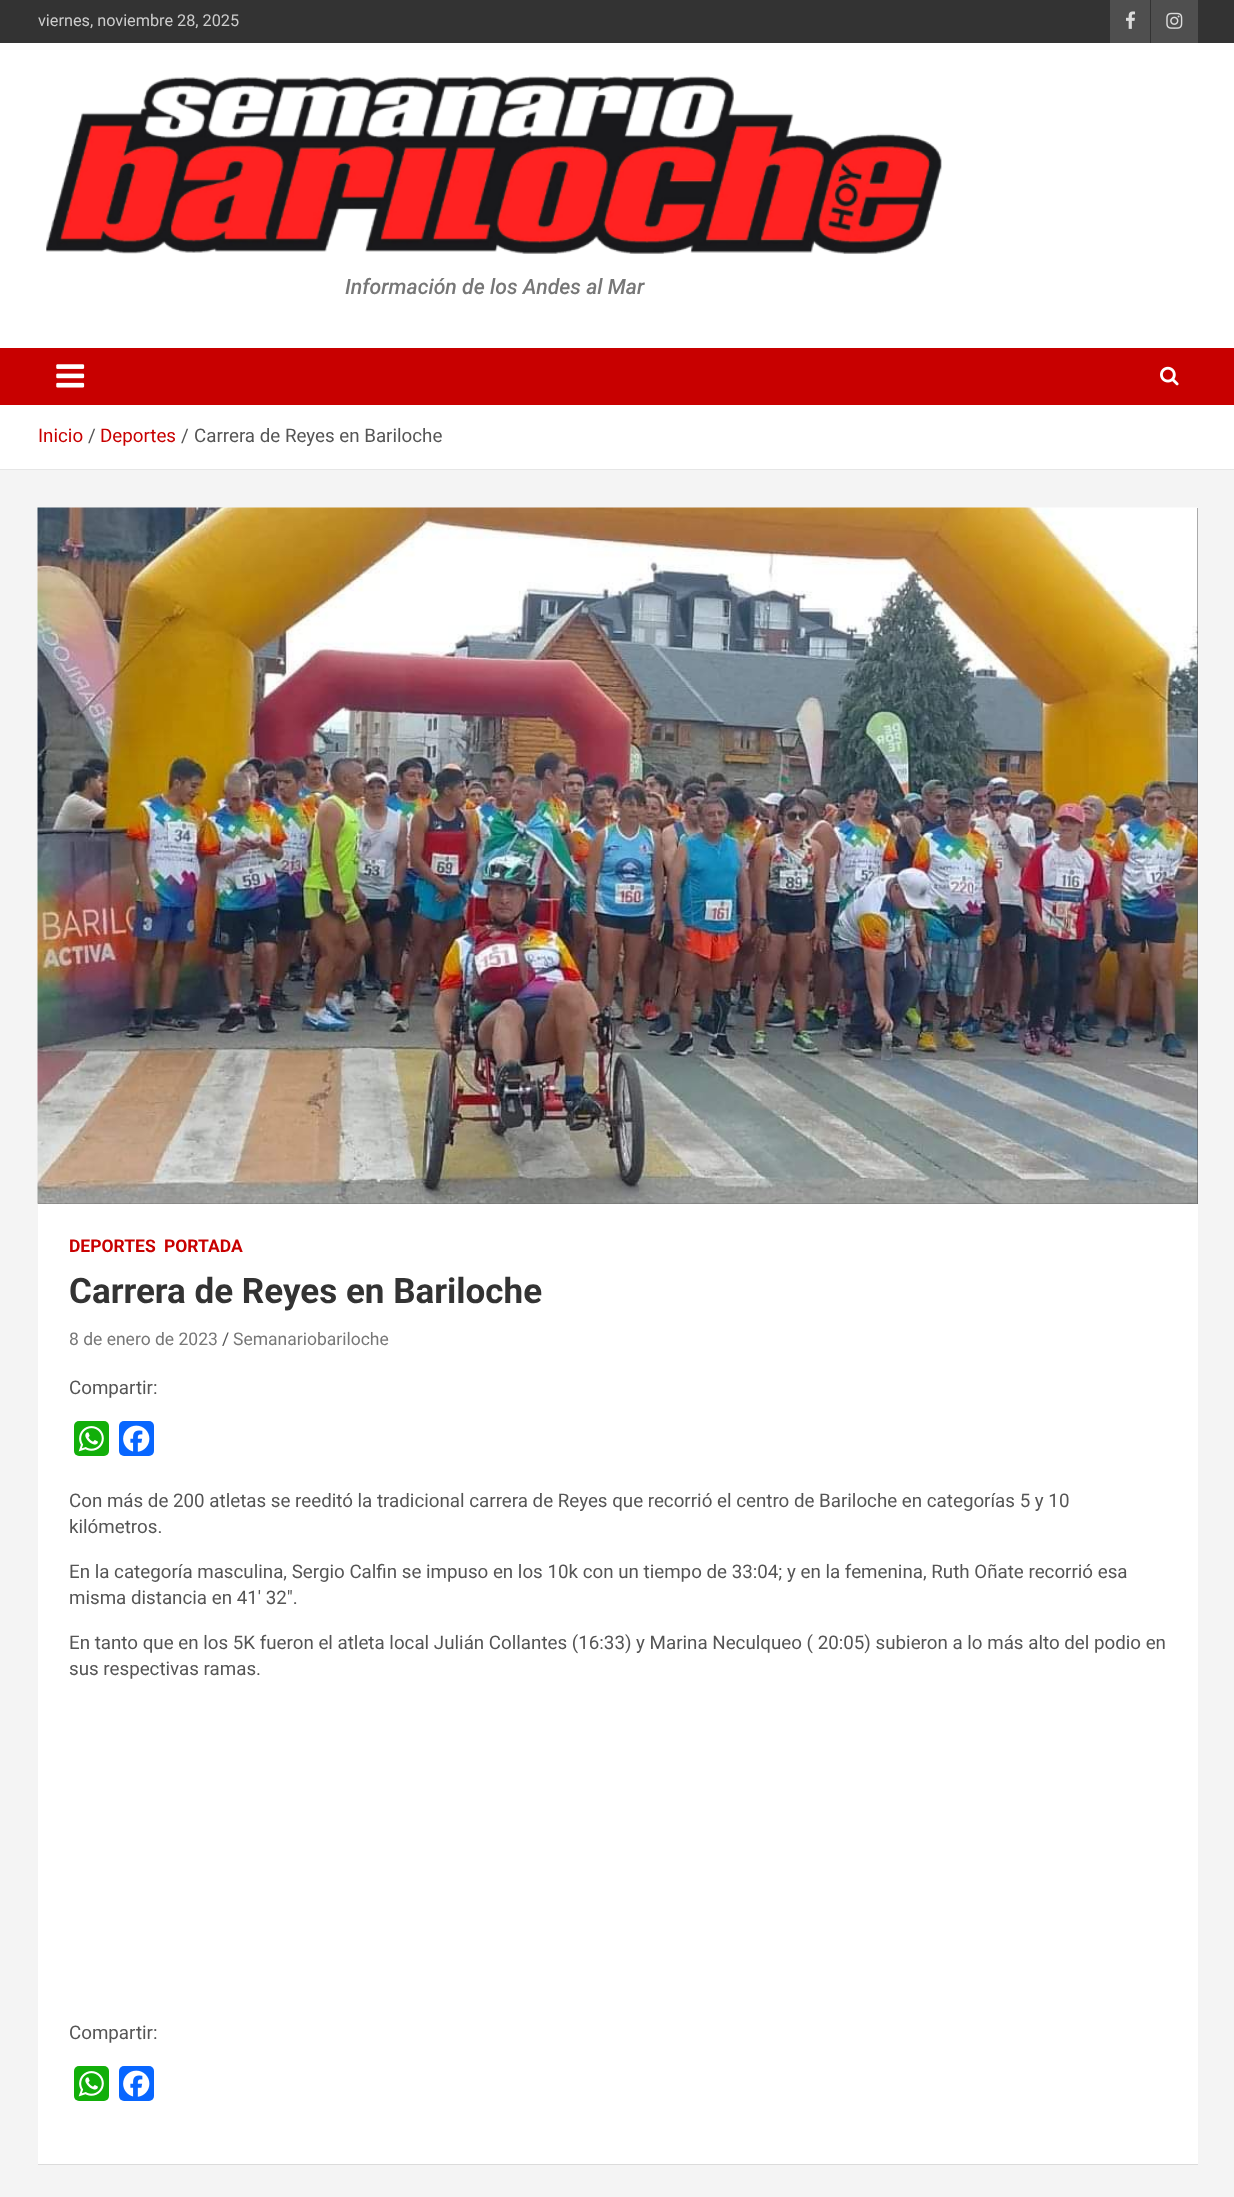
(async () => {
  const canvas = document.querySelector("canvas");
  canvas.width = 1234;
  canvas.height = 2197;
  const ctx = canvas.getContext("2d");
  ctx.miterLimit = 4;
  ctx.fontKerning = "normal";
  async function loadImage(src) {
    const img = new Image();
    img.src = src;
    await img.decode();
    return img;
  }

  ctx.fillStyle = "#f4f4f4";
  ctx.fillRect(0, 0, 1234, 2197);
  ctx.fillStyle = "#333333";
  ctx.fillRect(0, 0, 1234, 43);
  ctx.fillStyle = "#4f4f4f";
  ctx.fillRect(1110, 0, 40, 43);
  ctx.drawImage(await loadImage("img/1.png"), 1126, 11, 10, 18);
  ctx.fillRect(1151, 0, 47, 43);
  ctx.drawImage(await loadImage("img/2.png"), 1166, 12, 17, 17);
  ctx.fillStyle = "#ffffff";
  ctx.fillRect(0, 43, 1234, 305);
  ctx.drawImage(await loadImage("img/3.png"), 46, 76, 896, 178);
  ctx.fillStyle = "#c80000";
  ctx.fillRect(0, 348, 1234, 57);
  ctx.drawImage(await loadImage("img/4.png"), 56, 364, 29, 24);
  ctx.drawImage(await loadImage("img/5.png"), 1160, 366, 19, 20);
  ctx.fillStyle = "#ffffff";
  ctx.fillRect(0, 405, 1234, 64);
  ctx.fillStyle = "#e6e6e6";
  ctx.fillRect(0, 469, 1234, 1);
  ctx.fillStyle = "rgba(0, 0, 0, 0.1)";
  ctx.filter = "blur(0.5px)";
  ctx.beginPath();
  ctx.rect(38, 509, 1160, 1656);
  ctx.fill();
  ctx.filter = "none";
  ctx.fillStyle = "#ffffff";
  ctx.fillRect(38, 1204, 1160, 960);
  ctx.fillStyle = "#555555";
  ctx.fillRect(38, 508, 1160, 696);
  ctx.drawImage(await loadImage("img/6.png"), 37, 507, 1161, 697);
  ctx.fillStyle = "#12af0a";
  ctx.beginPath();
  ctx.roundRect(74, 1421, 35, 35, 5);
  ctx.fill();
  ctx.drawImage(await loadImage("img/7.png"), 78, 1426, 26, 26);
  ctx.fillStyle = "#0866ff";
  ctx.beginPath();
  ctx.roundRect(119, 1421, 35, 35, 5);
  ctx.fill();
  ctx.drawImage(await loadImage("img/8.png"), 123, 1425, 27, 27);
  ctx.fillStyle = "#12af0a";
  ctx.beginPath();
  ctx.roundRect(74, 2066, 35, 35, 5);
  ctx.fill();
  ctx.drawImage(await loadImage("img/7.png"), 78, 2071, 26, 26);
  ctx.fillStyle = "#0866ff";
  ctx.beginPath();
  ctx.roundRect(119, 2066, 35, 35, 5);
  ctx.fill();
  ctx.drawImage(await loadImage("img/8.png"), 123, 2070, 27, 27);
  ctx.font = "16.25px Roboto";
  ctx.fillStyle = "#cccccc";
  ctx.fillText("viernes, noviembre 28, 2025", 38, 26);
  ctx.font = "italic 500 21.25px Roboto";
  ctx.fillStyle = "#777777";
  ctx.fillText("Información de los Andes al Mar", 345, 294);
  ctx.font = "18.75px Roboto";
  ctx.fillStyle = "#c80000";
  ctx.fillText("Inicio", 38, 442);
  ctx.fillStyle = "#555555";
  ctx.fillText("/", 88, 442);
  ctx.fillStyle = "#c80000";
  ctx.fillText("Deportes", 100, 442);
  ctx.fillStyle = "#555555";
  ctx.fillText("/", 181, 442);
  ctx.fillText("Carrera de Reyes en Bariloche", 194, 442);
  ctx.font = "bold 17.5px Roboto";
  ctx.fillStyle = "#c80000";
  ctx.fillText("DEPORTES", 69, 1252);
  ctx.fillText("PORTADA", 164, 1252);
  ctx.font = "bold 35px Roboto";
  ctx.fillStyle = "#333333";
  ctx.fillText("Carrera de Reyes en Bariloche", 69, 1303);
  ctx.font = "17.5px Roboto";
  ctx.fillStyle = "#777777";
  ctx.fillText("8 de enero de 2023", 69, 1345);
  ctx.fillStyle = "#555555";
  ctx.fillText("/", 222, 1345);
  ctx.fillStyle = "#777777";
  ctx.fillText("Semanariobariloche", 233, 1345);
  ctx.font = "18.75px Roboto";
  ctx.fillStyle = "#555555";
  for (const [text, x, y] of [
    ["Compartir:", 69, 1394],
    ["Con más de 200 atletas se reeditó la tradicional carrera de Reyes que recorrió el centro de Bariloche en categorías 5 y 10", 69, 1507],
    ["kilómetros.", 69, 1533],
    ["En la categoría masculina, Sergio Calfin se impuso en los 10k con un tiempo de 33:04; y en la femenina, Ruth Oñate recorrió esa", 69, 1578],
    ["misma distancia en 41′ 32″.", 69, 1604],
    ["En tanto que en los 5K fueron el atleta local Julián Collantes (16:33) y Marina Neculqueo ( 20:05) subieron a lo más alto del podio en", 69, 1649],
    ["sus respectivas ramas.", 69, 1675],
    ["Compartir:", 69, 2039],
  ]) {
    ctx.fillText(text, x, y);
  }
})();
